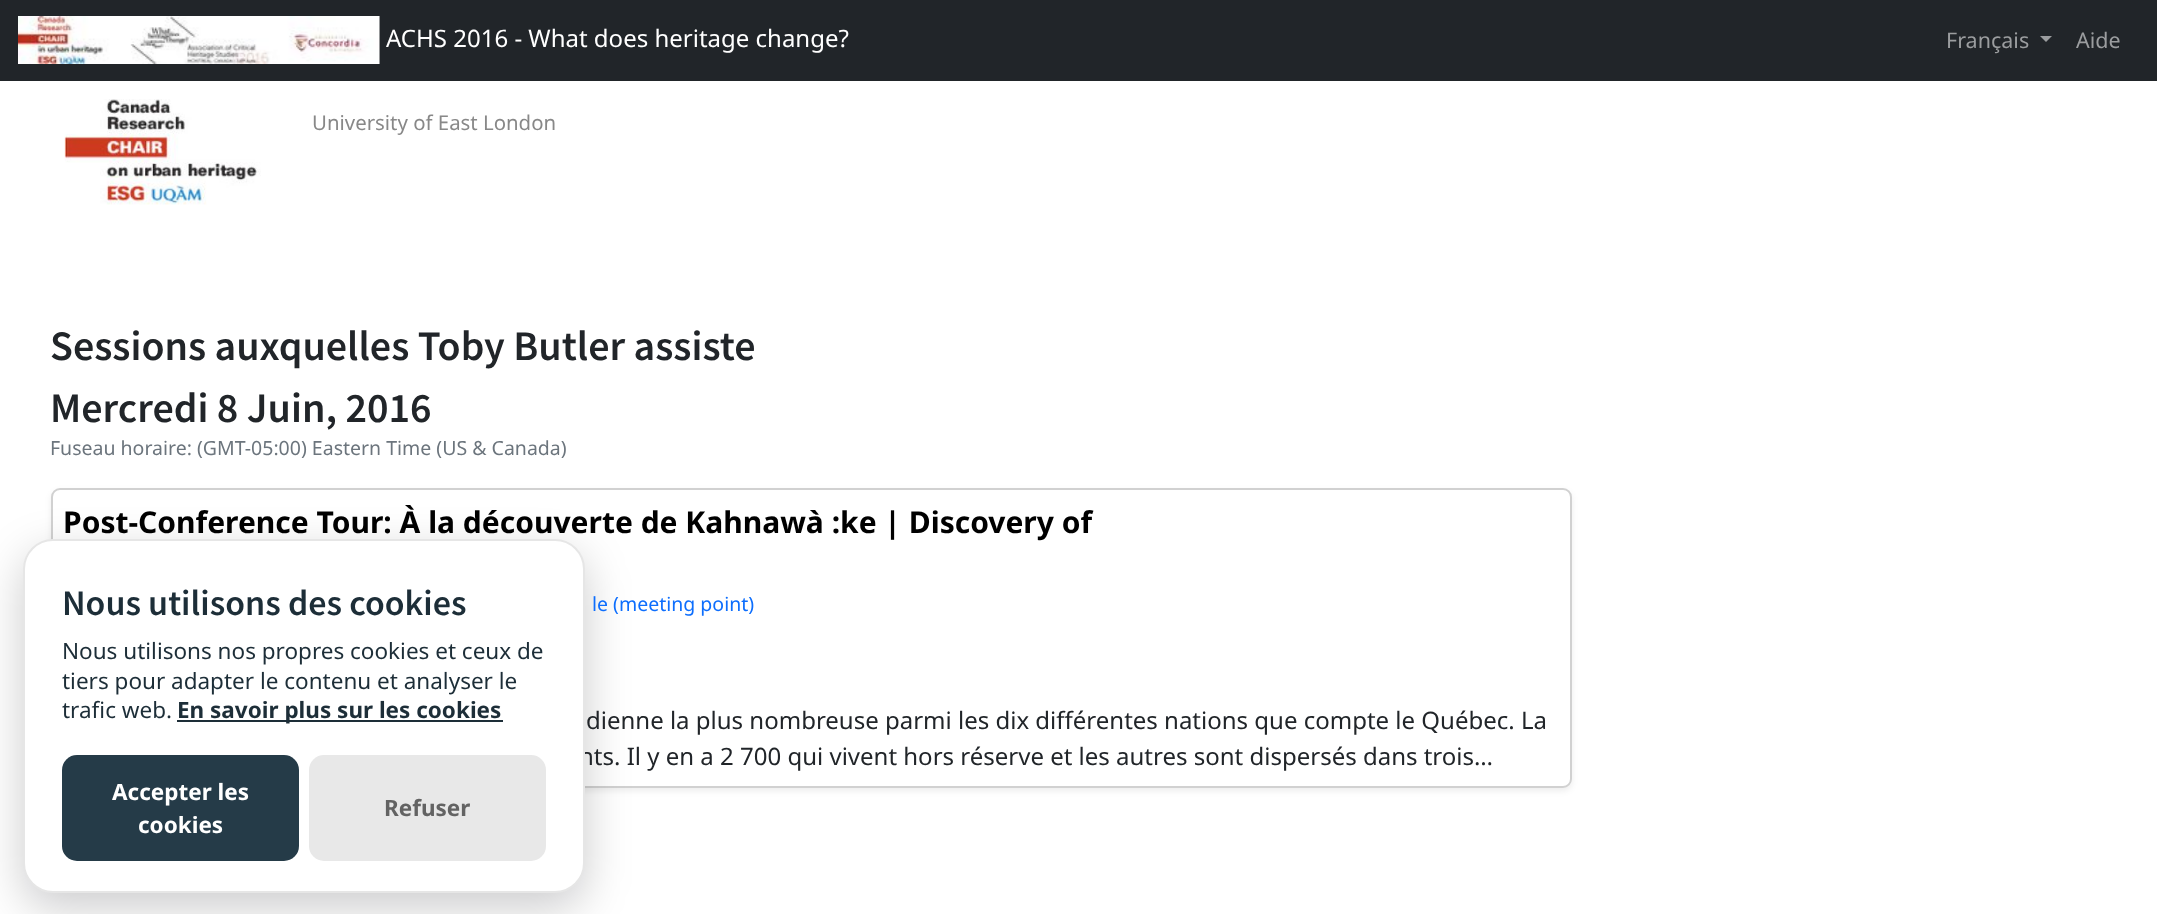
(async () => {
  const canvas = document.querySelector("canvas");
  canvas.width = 2157;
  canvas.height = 914;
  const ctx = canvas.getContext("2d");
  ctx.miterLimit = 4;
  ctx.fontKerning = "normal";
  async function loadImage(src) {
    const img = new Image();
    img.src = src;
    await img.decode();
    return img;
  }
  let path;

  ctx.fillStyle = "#ffffff";
  ctx.fillRect(0, 0, 2157, 914);
  ctx.fillStyle = "#212529";
  ctx.fillRect(0, 0, 2157, 81);
  ctx.drawImage(await loadImage("img/1.png"), 18, 16, 362, 48);
  ctx.fillStyle = "#9b9d9f";
  path = new Path2D("M2040 36H2052L2046 42Z");
  ctx.fill(path);
  ctx.drawImage(await loadImage("img/2.png"), 64, 99, 197, 106);
  ctx.fillStyle = "rgba(0, 0, 0, 0.07)";
  ctx.filter = "blur(3px)";
  ctx.beginPath();
  ctx.roundRect(51, 491, 1521, 300, 9);
  ctx.fill();
  ctx.filter = "none";
  ctx.fillStyle = "#ffffff";
  ctx.beginPath();
  ctx.roundRect(51, 488, 1521, 300, 9);
  ctx.fill();
  ctx.beginPath();
  ctx.roundRect(52, 489, 1519, 298, 8);
  ctx.strokeStyle = "rgba(0, 0, 0, 0.18)";
  ctx.lineWidth = 2;
  ctx.stroke();
  ctx.fillStyle = "rgba(2, 2, 3, 0.2)";
  ctx.filter = "blur(22.5px)";
  ctx.beginPath();
  ctx.roundRect(23, 554, 562, 354, 30);
  ctx.fill();
  ctx.filter = "none";
  ctx.font = "24px Noto Sans";
  ctx.fillStyle = "#ffffff";
  ctx.fillText("ACHS 2016 - What does heritage change?", 386, 47);
  ctx.font = "21.5px Noto Sans";
  ctx.fillStyle = "#9b9d9f";
  ctx.fillText("Français", 1946, 48);
  ctx.fillText("Aide", 2076, 48);
  ctx.font = "20.4px Noto Sans";
  ctx.fillStyle = "#888888";
  ctx.fillText("University of East London", 312, 130);
  ctx.font = "600 42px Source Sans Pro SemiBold";
  ctx.fillStyle = "#212529";
  ctx.fillText("Sessions auxquelles Toby Butler assiste", 50, 360);
  ctx.fillText("Mercredi 8 Juin, 2016", 50, 422);
  ctx.font = "19.5px Noto Sans";
  ctx.fillStyle = "#6c757d";
  ctx.fillText("Fuseau horaire: (GMT-05:00) Eastern Time (US & Canada)", 50, 455);
  ctx.font = "bold 30px Noto Sans";
  ctx.fillStyle = "#000000";
  ctx.fillText("Post-Conference Tour: À la découverte de Kahnawà :ke | Discovery of", 63, 533);
  ctx.font = "19.5px Noto Sans";
  ctx.fillStyle = "#0d6efd";
  ctx.fillText("le (meeting point)", 592, 611);
  ctx.font = "24px Noto Sans";
  ctx.fillStyle = "#212529";
  ctx.fillText("dienne la plus nombreuse parmi les dix différentes nations que compte le Québec. La", 586, 729);
  ctx.fillText("nts. Il y en a 2 700 qui vivent hors réserve et les autres sont dispersés dans trois…", 579, 765);
  ctx.fillStyle = "#ffffff";
  ctx.beginPath();
  ctx.roundRect(24, 540, 560, 352, 29);
  ctx.fill();
  ctx.strokeStyle = "#e6e6e6";
  ctx.stroke();
  ctx.font = "600 36px Source Sans Pro SemiBold";
  ctx.fillStyle = "#1d2e38";
  ctx.fillText("Nous utilisons des cookies", 62, 615);
  ctx.font = "22.5px Noto Sans";
  for (const [text, x, y] of [
    ["Nous utilisons nos propres cookies et ceux de", 62, 659],
    ["tiers pour adapter le contenu et analyser le", 62, 689],
    ["trafic web.", 62, 718],
  ]) {
    ctx.fillText(text, x, y);
  }
  ctx.fillRect(177, 720, 326, 2);
  ctx.font = "bold 22.5px Noto Sans";
  ctx.fillText("En savoir plus sur les cookies", 177, 718);
  ctx.fillStyle = "#253b48";
  ctx.beginPath();
  ctx.roundRect(62, 755, 237, 106, 15);
  ctx.fill();
  ctx.fillStyle = "#ffffff";
  ctx.fillText("Accepter les", 112, 800);
  ctx.fillText("cookies", 138, 833);
  ctx.fillStyle = "#e8e8e8";
  ctx.beginPath();
  ctx.roundRect(309, 755, 237, 106, 15);
  ctx.fill();
  ctx.fillStyle = "#636363";
  ctx.fillText("Refuser", 384, 816);
})();
